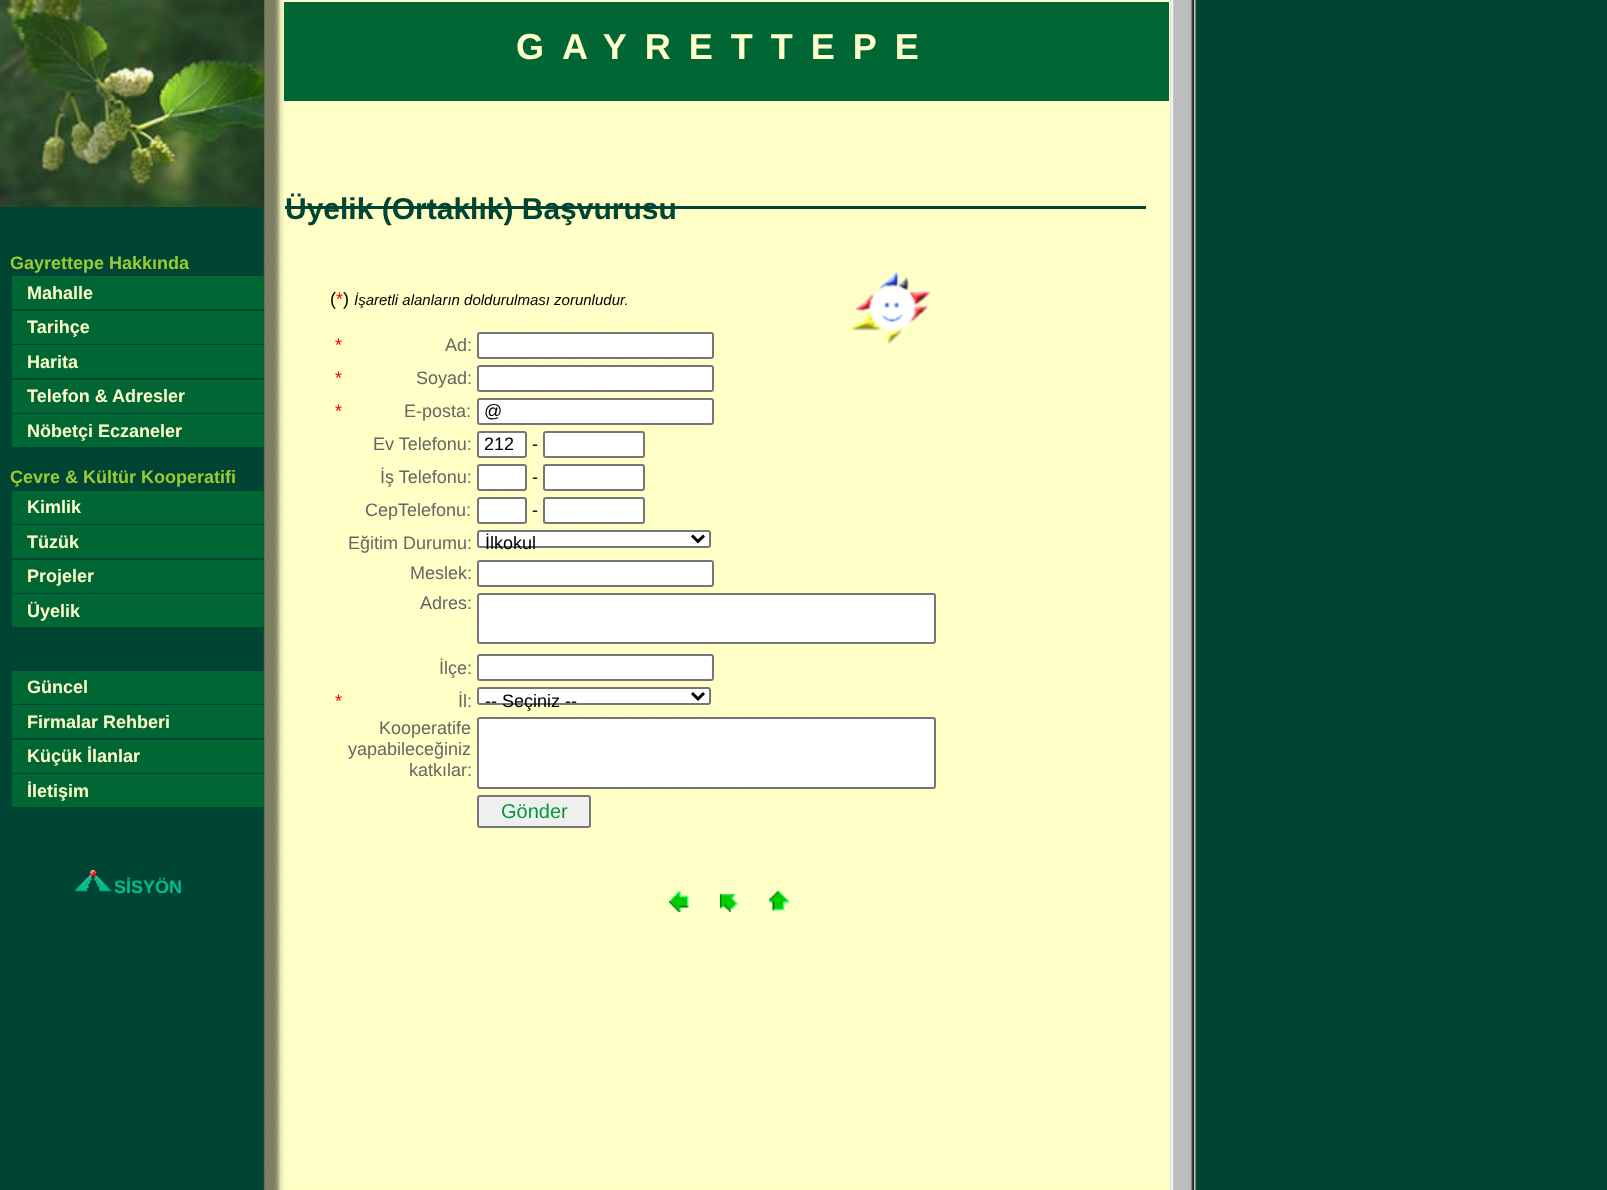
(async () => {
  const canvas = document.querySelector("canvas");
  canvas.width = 1607;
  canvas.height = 1190;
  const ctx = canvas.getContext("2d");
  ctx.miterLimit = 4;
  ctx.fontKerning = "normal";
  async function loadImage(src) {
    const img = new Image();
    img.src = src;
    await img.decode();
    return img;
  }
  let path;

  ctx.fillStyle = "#004433";
  ctx.fillRect(0, 0, 1607, 1190);
  ctx.drawImage(await loadImage("img/1.png"), 263, 0, 933, 1190);
  ctx.drawImage(await loadImage("img/2.png"), 0, 0, 264, 207);
  for (const [x, y, w, h, color] of [
    [284, 2, 885, 99, "#006633"],
    [285, 206, 861, 3, "#004433"],
    [12, 276, 252, 33, "#006633"],
    [263, 309, 1, 2, "#004433"],
    [12, 311, 252, 33, "#006633"],
    [263, 344, 1, 1, "#004433"],
    [12, 345, 252, 33, "#006633"],
    [263, 378, 1, 2, "#004433"],
    [12, 380, 252, 33, "#006633"],
    [263, 413, 1, 1, "#004433"],
    [12, 414, 252, 33, "#006633"],
    [263, 447, 1, 2, "#004433"],
    [12, 491, 252, 33, "#006633"],
    [263, 524, 1, 1, "#004433"],
    [12, 525, 252, 33, "#006633"],
    [263, 558, 1, 2, "#004433"],
    [12, 560, 252, 33, "#006633"],
    [263, 593, 1, 1, "#004433"],
    [12, 594, 252, 33, "#006633"],
    [263, 627, 1, 2, "#004433"],
    [12, 671, 252, 33, "#006633"],
    [263, 704, 1, 1, "#004433"],
    [12, 705, 252, 33, "#006633"],
    [263, 738, 1, 2, "#004433"],
    [12, 740, 252, 33, "#006633"],
    [263, 773, 1, 1, "#004433"],
    [12, 774, 252, 33, "#006633"],
    [263, 807, 1, 2, "#004433"],
  ]) {
    ctx.fillStyle = color;
    ctx.fillRect(x, y, w, h);
  }
  ctx.drawImage(await loadImage("img/3.png"), 850, 271, 81, 73);
  ctx.fillStyle = "#ffffff";
  ctx.beginPath();
  ctx.roundRect(478, 333, 235, 25, 2);
  ctx.fill();
  ctx.strokeStyle = "#767676";
  ctx.lineWidth = 2;
  ctx.stroke();
  ctx.beginPath();
  ctx.roundRect(478, 366, 235, 25, 2);
  ctx.fill();
  ctx.stroke();
  ctx.beginPath();
  ctx.roundRect(478, 399, 235, 25, 2);
  ctx.fill();
  ctx.stroke();
  ctx.beginPath();
  ctx.roundRect(478, 432, 48, 25, 2);
  ctx.fill();
  ctx.stroke();
  ctx.beginPath();
  ctx.roundRect(544, 432, 100, 25, 2);
  ctx.fill();
  ctx.stroke();
  ctx.beginPath();
  ctx.roundRect(478, 465, 48, 25, 2);
  ctx.fill();
  ctx.stroke();
  ctx.beginPath();
  ctx.roundRect(544, 465, 100, 25, 2);
  ctx.fill();
  ctx.stroke();
  ctx.beginPath();
  ctx.roundRect(478, 498, 48, 25, 2);
  ctx.fill();
  ctx.stroke();
  ctx.beginPath();
  ctx.roundRect(544, 498, 100, 25, 2);
  ctx.fill();
  ctx.stroke();
  ctx.beginPath();
  ctx.roundRect(478, 531, 232, 16, 2);
  ctx.fill();
  ctx.stroke();
  path = new Path2D("M692 535.5L698 541.5L704 535.5");
  ctx.strokeStyle = "#000000";
  ctx.lineWidth = 3;
  ctx.stroke(path);
  ctx.beginPath();
  ctx.roundRect(478, 561, 235, 25, 2);
  ctx.fill();
  ctx.strokeStyle = "#767676";
  ctx.lineWidth = 2;
  ctx.stroke();
  ctx.beginPath();
  ctx.roundRect(478, 594, 457, 49, 2);
  ctx.fill();
  ctx.stroke();
  ctx.beginPath();
  ctx.roundRect(478, 655, 235, 25, 2);
  ctx.fill();
  ctx.stroke();
  ctx.beginPath();
  ctx.roundRect(478, 688, 232, 16, 2);
  ctx.fill();
  ctx.stroke();
  path = new Path2D("M692 693L698 699L704 693");
  ctx.strokeStyle = "#000000";
  ctx.lineWidth = 3;
  ctx.stroke(path);
  ctx.beginPath();
  ctx.roundRect(478, 718, 457, 70, 2);
  ctx.fill();
  ctx.strokeStyle = "#767676";
  ctx.lineWidth = 2;
  ctx.stroke();
  ctx.fillStyle = "#efefef";
  ctx.beginPath();
  ctx.roundRect(478, 796, 112, 31, 2);
  ctx.fill();
  ctx.stroke();
  ctx.drawImage(await loadImage("img/4.png"), 74, 870, 38, 22);
  ctx.drawImage(await loadImage("img/5.png"), 669, 890, 20, 22);
  ctx.drawImage(await loadImage("img/6.png"), 720, 893, 19, 19);
  ctx.drawImage(await loadImage("img/7.png"), 769, 890, 20, 21);
  ctx.letterSpacing = "18px";
  ctx.font = "bold 36px Liberation Sans";
  ctx.fillStyle = "#ffffcc";
  ctx.fillText("GAYRETTEPE", 516, 59);
  ctx.letterSpacing = "0px";
  ctx.font = "bold 30px Liberation Sans";
  ctx.fillStyle = "#004433";
  ctx.fillText("Üyelik (Ortaklık) Başvurusu", 285, 219);
  ctx.font = "bold 18px Liberation Sans";
  ctx.fillStyle = "#99cc33";
  ctx.fillText("Gayrettepe Hakkında", 10, 269);
  ctx.fillStyle = "#ffffcc";
  for (const [text, x, y] of [
    ["Mahalle", 27, 299],
    ["Tarihçe", 27, 333],
    ["Harita", 27, 368],
    ["Telefon & Adresler", 27, 402],
    ["Nöbetçi Eczaneler", 27, 437],
  ]) {
    ctx.fillText(text, x, y);
  }
  ctx.fillStyle = "#99cc33";
  ctx.fillText("Çevre & Kültür Kooperatifi", 10, 483);
  ctx.fillStyle = "#ffffcc";
  for (const [text, x, y] of [
    ["Kimlik", 27, 513],
    ["Tüzük", 27, 548],
    ["Projeler", 27, 582],
    ["Üyelik", 27, 617],
    ["Güncel", 27, 693],
    ["Firmalar Rehberi", 27, 728],
    ["Küçük İlanlar", 27, 762],
    ["İletişim", 27, 797],
  ]) {
    ctx.fillText(text, x, y);
  }
  ctx.font = "18px Liberation Sans";
  ctx.fillStyle = "#000000";
  ctx.fillText("(", 330, 305);
  ctx.fillStyle = "#ff0000";
  ctx.fillText("*", 336, 305);
  ctx.fillStyle = "#000000";
  ctx.fillText(")", 343, 305);
  ctx.font = "italic 15px Liberation Sans";
  ctx.fillText("İşaretli alanların doldurulması zorunludur.", 354, 305);
  ctx.font = "18px Liberation Sans";
  ctx.fillStyle = "#ff0000";
  ctx.fillText("*", 335, 351);
  ctx.fillStyle = "#666666";
  ctx.fillText("Ad:", 445, 351);
  ctx.fillStyle = "#ff0000";
  ctx.fillText("*", 335, 384);
  ctx.fillStyle = "#666666";
  ctx.fillText("Soyad:", 416, 384);
  ctx.fillStyle = "#ff0000";
  ctx.fillText("*", 335, 417);
  ctx.fillStyle = "#666666";
  ctx.fillText("E-posta:", 404, 417);
  ctx.fillStyle = "#000000";
  ctx.fillText("@", 484, 417);
  ctx.fillStyle = "#666666";
  ctx.fillText("Ev Telefonu:", 373, 450);
  ctx.fillStyle = "#000000";
  ctx.fillText("212", 484, 450);
  ctx.fillText("-", 532, 450);
  ctx.fillStyle = "#666666";
  ctx.fillText("İş Telefonu:", 380, 483);
  ctx.fillStyle = "#000000";
  ctx.fillText("-", 532, 483);
  ctx.fillStyle = "#666666";
  ctx.fillText("CepTelefonu:", 365, 516);
  ctx.fillStyle = "#000000";
  ctx.fillText("-", 532, 516);
  ctx.fillStyle = "#666666";
  ctx.fillText("Eğitim Durumu:", 348, 549);
  ctx.fillStyle = "#000000";
  ctx.fillText("İlkokul", 485, 549);
  ctx.fillStyle = "#666666";
  for (const [text, x, y] of [
    ["Meslek:", 410, 579],
    ["Adres:", 420, 609],
    ["İlçe:", 439, 674],
  ]) {
    ctx.fillText(text, x, y);
  }
  ctx.fillStyle = "#ff0000";
  ctx.fillText("*", 335, 707);
  ctx.fillStyle = "#666666";
  ctx.fillText("İl:", 458, 707);
  ctx.fillStyle = "#000000";
  ctx.fillText("-- Seçiniz --", 485, 707);
  ctx.fillStyle = "#666666";
  for (const [text, x, y] of [
    ["Kooperatife", 379, 734],
    ["yapabileceğiniz", 348, 755],
    ["katkılar:", 409, 776],
  ]) {
    ctx.fillText(text, x, y);
  }
  ctx.font = "20px Liberation Sans";
  ctx.fillStyle = "#009933";
  ctx.fillText("Gönder", 501, 818);
  ctx.font = "bold 18px Liberation Sans";
  ctx.fillStyle = "#00be94";
  ctx.fillText("SİSYÖN", 114, 893);
})();
